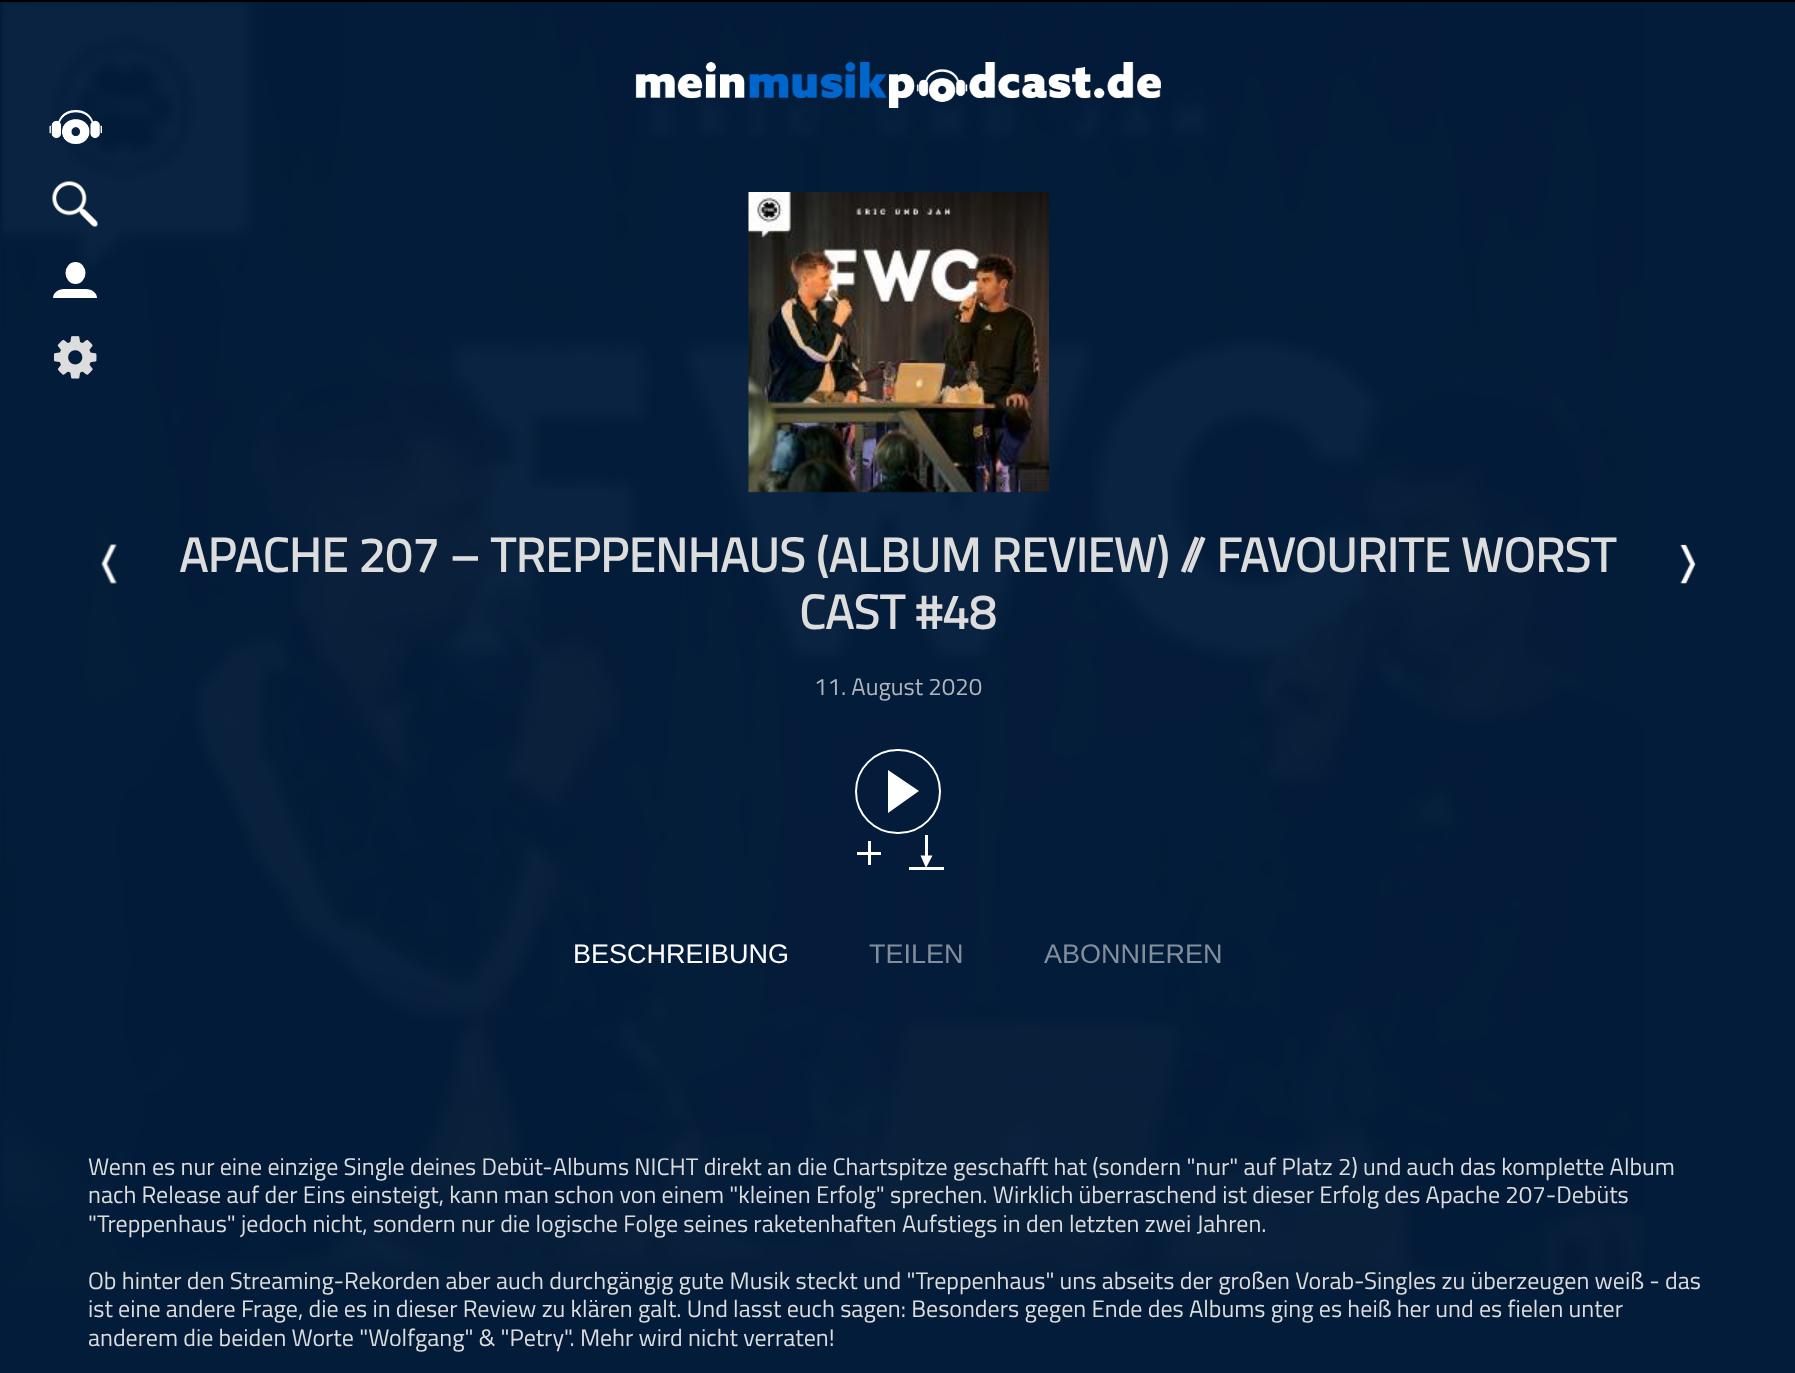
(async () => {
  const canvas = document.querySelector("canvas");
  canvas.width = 1795;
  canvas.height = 1373;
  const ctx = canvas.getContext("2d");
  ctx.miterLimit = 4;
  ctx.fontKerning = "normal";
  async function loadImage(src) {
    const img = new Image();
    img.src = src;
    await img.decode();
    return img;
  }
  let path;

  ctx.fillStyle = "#031c3a";
  ctx.fillRect(0, 0, 1795, 1373);
  ctx.fillStyle = "#000000";
  ctx.fillRect(0, 0, 1795, 2);
  ctx.drawImage(await loadImage("img/5.png"), 2, 2, 1642, 1286);
  ctx.drawImage(await loadImage("img/1.png"), 635, 62, 526, 46);
  ctx.drawImage(await loadImage("img/2.png"), 49, 110, 53, 34);
  ctx.drawImage(await loadImage("img/3.png"), 52, 181, 46, 46);
  ctx.fillStyle = "#ffffff";
  ctx.beginPath();
  ctx.ellipse(75.5, 273, 10, 11, 0, 0, Math.PI * 2);
  ctx.fill();
  path = new Path2D("M86 289H64C58 289 53 293 53 298H97C97 293 92 289 86 289Z");
  ctx.fill(path);
  ctx.drawImage(await loadImage("img/4.png"), 54, 336, 43, 43);
  ctx.drawImage(await loadImage("img/6.png"), 748, 192, 301, 301);
  ctx.drawImage(await loadImage("img/7.png"), 101, 544, 16, 40);
  ctx.drawImage(await loadImage("img/8.png"), 1680, 544, 16, 40);
  path = new Path2D("M888 770L919 791L888 813Z");
  ctx.fill(path, "evenodd");
  ctx.beginPath();
  ctx.roundRect(856, 750, 84, 83, 41.5);
  ctx.strokeStyle = "#ffffff";
  ctx.lineWidth = 2;
  ctx.stroke();
  ctx.fillRect(857, 852, 24, 3);
  ctx.fillRect(868, 841, 3, 24);
  path = new Path2D("M920.5 855.5H932.5L926 868Z");
  ctx.fill(path, "evenodd");
  ctx.fillRect(925, 835, 3, 21);
  ctx.fillRect(909, 867, 35, 3);
  ctx.font = "bold 48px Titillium";
  ctx.fillStyle = "#dddddd";
  ctx.fillText("APACHE 207 – TREPPENHAUS (ALBUM REVIEW) // FAVOURITE WORST", 179, 572);
  ctx.fillText("CAST #48", 799, 629);
  ctx.font = "24px Titillium";
  ctx.fillStyle = "#b2b6bc";
  ctx.fillText("11. August 2020", 814, 695);
  ctx.font = "27px Liberation Sans";
  ctx.fillStyle = "#ffffff";
  ctx.fillText("BESCHREIBUNG", 573, 963);
  ctx.fillStyle = "#828e9c";
  ctx.fillText("TEILEN", 869, 963);
  ctx.fillText("ABONNIEREN", 1044, 963);
  ctx.font = "24px Titillium";
  ctx.fillStyle = "#dddddd";
  for (const [text, x, y] of [
    ["Wenn es nur eine einzige Single deines Debüt-Albums NICHT direkt an die Chartspitze geschafft hat (sondern \"nur\" auf Platz 2) und auch das komplette Album", 88, 1175],
    ["nach Release auf der Eins einsteigt, kann man schon von einem \"kleinen Erfolg\" sprechen. Wirklich überraschend ist dieser Erfolg des Apache 207-Debüts", 88, 1203],
    ["\"Treppenhaus\" jedoch nicht, sondern nur die logische Folge seines raketenhaften Aufstiegs in den letzten zwei Jahren.", 88, 1232],
    ["Ob hinter den Streaming-Rekorden aber auch durchgängig gute Musik steckt und \"Treppenhaus\" uns abseits der großen Vorab-Singles zu überzeugen weiß - das", 88, 1289],
    ["ist eine andere Frage, die es in dieser Review zu klären galt. Und lasst euch sagen: Besonders gegen Ende des Albums ging es heiß her und es fielen unter", 88, 1317],
    ["anderem die beiden Worte \"Wolfgang\" & \"Petry\". Mehr wird nicht verraten!", 88, 1346],
  ]) {
    ctx.fillText(text, x, y);
  }
})();
